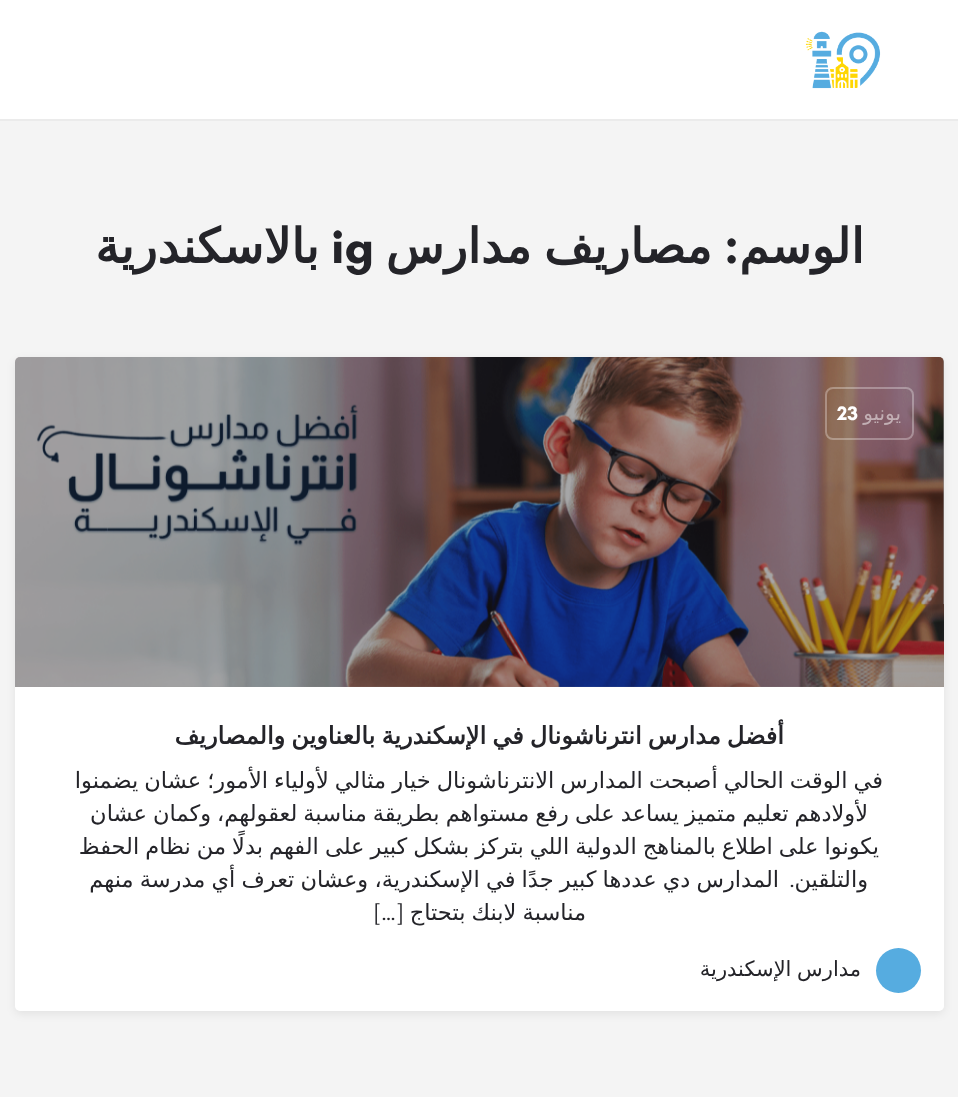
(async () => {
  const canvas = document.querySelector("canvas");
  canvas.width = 958;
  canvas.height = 1097;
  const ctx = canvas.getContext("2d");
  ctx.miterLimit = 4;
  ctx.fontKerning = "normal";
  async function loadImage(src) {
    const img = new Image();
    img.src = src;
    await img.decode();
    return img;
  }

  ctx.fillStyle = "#f4f4f4";
  ctx.fillRect(0, 0, 958, 1097);
  ctx.fillStyle = "#ffffff";
  ctx.fillRect(0, 0, 958, 119);
  ctx.fillStyle = "#ebebeb";
  ctx.fillRect(0, 119, 958, 2);
  ctx.drawImage(await loadImage("img/1.png"), 805, 31, 76, 58);
  ctx.fillStyle = "rgba(0, 0, 0, 0.07)";
  ctx.filter = "blur(4px)";
  ctx.beginPath();
  ctx.roundRect(15, 360, 929, 654, 5);
  ctx.fill();
  ctx.filter = "none";
  ctx.fillStyle = "#ffffff";
  ctx.beginPath();
  ctx.roundRect(15, 357, 929, 654, 5);
  ctx.fill();
  ctx.fillStyle = "#e3e3e3";
  ctx.beginPath();
  ctx.roundRect(15, 357, 929, 330, [5, 5, 0, 0]);
  ctx.fill();
  ctx.drawImage(await loadImage("img/2.png"), 15, 357, 929, 330);
  ctx.fillStyle = "rgba(36, 36, 41, 0.4)";
  ctx.beginPath();
  ctx.roundRect(15, 357, 929, 330, [5, 5, 0, 0]);
  ctx.fill();
  ctx.beginPath();
  ctx.roundRect(826, 388, 87, 51, 7);
  ctx.strokeStyle = "rgba(255, 255, 255, 0.3)";
  ctx.lineWidth = 2;
  ctx.stroke();
  ctx.fillStyle = "#56ace0";
  ctx.beginPath();
  ctx.arc(898.5, 970.5, 22.5, 0, Math.PI * 2);
  ctx.fill();
  ctx.direction = "rtl";
  ctx.font = "bold 48px DejaVu Sans";
  ctx.fillStyle = "#242429";
  ctx.fillText("الوسم", 864, 263);
  ctx.font = "bold 48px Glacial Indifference";
  ctx.fillText(":", 739, 263);
  ctx.wordSpacing = "-3px";
  ctx.font = "bold 48px DejaVu Sans";
  ctx.fillText("مصاريف مدارس", 712, 263);
  ctx.wordSpacing = "0px";
  ctx.direction = "ltr";
  ctx.font = "bold 48px Glacial Indifference";
  ctx.fillText("ig", 331, 263);
  ctx.direction = "rtl";
  ctx.font = "bold 48px DejaVu Sans";
  ctx.fillText("بالاسكندرية", 319, 263);
  ctx.font = "20px DejaVu Sans";
  ctx.fillStyle = "#c2afb4";
  ctx.fillText("يونيو", 901, 420);
  ctx.direction = "ltr";
  ctx.font = "bold 20px Glacial Indifference";
  ctx.fillStyle = "#ffffff";
  ctx.fillText("23", 837, 420);
  ctx.wordSpacing = "-1.5px";
  ctx.direction = "rtl";
  ctx.font = "bold 24px DejaVu Sans";
  ctx.fillStyle = "#242429";
  ctx.fillText("أفضل مدارس انترناشونال في الإسكندرية بالعناوين والمصاريف", 784, 744);
  ctx.wordSpacing = "-1.1px";
  ctx.font = "22.5px DejaVu Sans";
  for (const [text, x, y] of [
    ["في الوقت الحالي أصبحت المدارس الانترناشونال خيار مثالي لأولياء الأمور؛ عشان يضمنوا", 883, 788],
    ["لأولادهم تعليم متميز يساعد على رفع مستواهم بطريقة مناسبة لعقولهم، وكمان عشان", 868, 821],
    ["يكونوا على اطلاع بالمناهج الدولية اللي بتركز بشكل كبير على الفهم بدلًا من نظام الحفظ", 879, 854],
  ]) {
    ctx.fillText(text, x, y);
  }
  ctx.wordSpacing = "0px";
  ctx.fillText("والتلقين", 868, 887);
  ctx.font = "22.5px Glacial Indifference";
  ctx.fillText(".", 795, 887);
  ctx.wordSpacing = "-1px";
  ctx.font = "22.5px DejaVu Sans";
  ctx.fillText("المدارس دي عددها كبير جدًا في الإسكندرية، وعشان تعرف أي مدرسة منهم", 779, 887);
  ctx.fillText("مناسبة لابنك بتحتاج", 586, 920);
  ctx.wordSpacing = "0px";
  ctx.font = "22.5px Glacial Indifference";
  ctx.fillText("[…]", 404, 920);
  ctx.wordSpacing = "-1px";
  ctx.font = "21px DejaVu Sans";
  ctx.fillText("مدارس الإسكندرية", 861, 976);
})();
